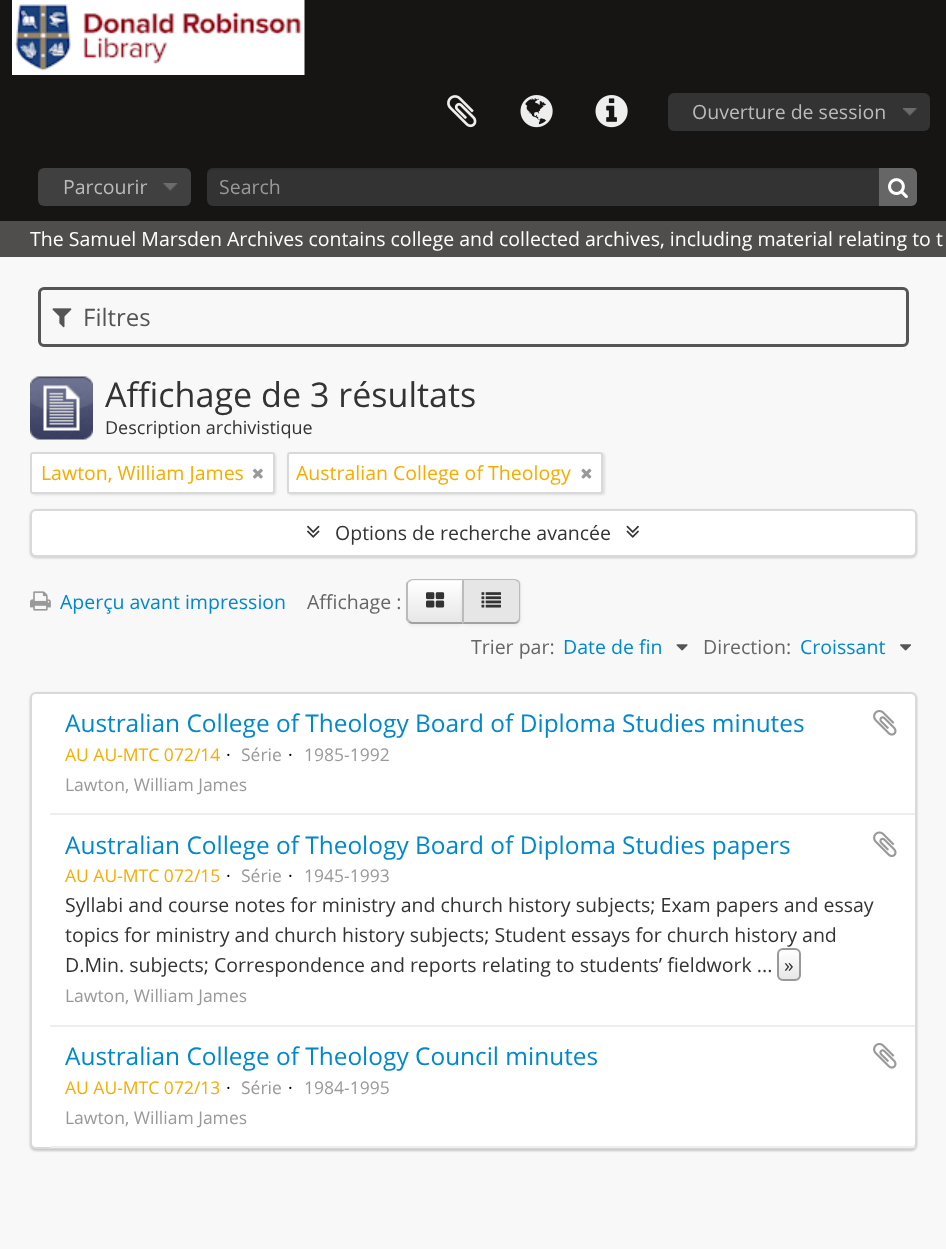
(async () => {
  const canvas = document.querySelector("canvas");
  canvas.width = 946;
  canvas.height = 1249;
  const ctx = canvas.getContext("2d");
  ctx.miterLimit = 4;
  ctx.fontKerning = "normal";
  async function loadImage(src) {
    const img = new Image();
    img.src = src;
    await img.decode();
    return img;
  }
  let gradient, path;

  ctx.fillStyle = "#f8f8f8";
  ctx.fillRect(0, 0, 946, 1249);
  ctx.fillStyle = "#161514";
  ctx.fillRect(0, 0, 946, 221);
  ctx.drawImage(await loadImage("img/1.png"), 12, 0, 293, 75);
  ctx.drawImage(await loadImage("img/2.png"), 447, 95, 30, 33);
  ctx.drawImage(await loadImage("img/3.png"), 520, 95, 33, 33);
  ctx.drawImage(await loadImage("img/4.png"), 595, 95, 33, 33);
  ctx.fillStyle = "#333333";
  ctx.beginPath();
  ctx.roundRect(668, 93, 262, 38, 6);
  ctx.fill();
  ctx.drawImage(await loadImage("img/5.png"), 903, 108, 14, 8);
  ctx.fillStyle = "#404040";
  ctx.beginPath();
  ctx.roundRect(38, 168, 153, 38, 6);
  ctx.fill();
  ctx.drawImage(await loadImage("img/6.png"), 163, 183, 15, 8);
  ctx.fillStyle = "#333333";
  ctx.beginPath();
  ctx.roundRect(207, 168, 710, 38, 6);
  ctx.fill();
  ctx.fillStyle = "rgba(0, 0, 0, 0.07)";
  path = new Path2D("M213 170H910C914 170 916 172 916 176V201C916 202 916 203 915 204C916 203 917 202 917 200V174C917 171 914 168 911 168H213C210 168 207 171 207 174V176C207 172 210 170 213 170Z");
  ctx.fill(path);
  ctx.fillStyle = "#666666";
  ctx.beginPath();
  ctx.roundRect(879, 168, 38, 38, [0, 6, 6, 0]);
  ctx.fill();
  ctx.drawImage(await loadImage("img/7.png"), 888, 178, 20, 20);
  ctx.fillStyle = "#4f4e4d";
  ctx.fillRect(0, 221, 946, 36);
  ctx.beginPath();
  ctx.roundRect(39.5, 288.5, 868, 57, 4.5);
  ctx.strokeStyle = "#555555";
  ctx.lineWidth = 3;
  ctx.stroke();
  ctx.drawImage(await loadImage("img/8.png"), 52, 308, 20, 20);
  ctx.drawImage(await loadImage("img/9.png"), 30, 376, 63, 64);
  ctx.fillStyle = "rgba(0, 0, 0, 0.1)";
  ctx.filter = "blur(1px)";
  ctx.beginPath();
  ctx.roundRect(32, 453, 244, 42, 3);
  ctx.fill();
  ctx.filter = "none";
  ctx.fillStyle = "#ffffff";
  ctx.beginPath();
  ctx.roundRect(31, 453, 243, 40, 2);
  ctx.fill();
  ctx.strokeStyle = "#d9d9d9";
  ctx.lineWidth = 2;
  ctx.stroke();
  ctx.drawImage(await loadImage("img/10.png"), 253, 468, 10, 11);
  ctx.fillStyle = "rgba(0, 0, 0, 0.1)";
  ctx.filter = "blur(1px)";
  ctx.beginPath();
  ctx.roundRect(288, 453, 317, 42, 3);
  ctx.fill();
  ctx.filter = "none";
  ctx.fillStyle = "#ffffff";
  ctx.beginPath();
  ctx.roundRect(288, 453, 314, 40, 2);
  ctx.fill();
  ctx.stroke();
  ctx.drawImage(await loadImage("img/11.png"), 581, 468, 11, 11);
  ctx.fillStyle = "rgba(0, 0, 0, 0.2)";
  ctx.filter = "blur(1px)";
  ctx.beginPath();
  ctx.roundRect(30, 510, 887, 48, 6);
  ctx.fill();
  ctx.filter = "none";
  ctx.fillStyle = "#ffffff";
  ctx.beginPath();
  ctx.roundRect(31, 510, 885, 46, 5);
  ctx.fill();
  ctx.stroke();
  ctx.drawImage(await loadImage("img/12.png"), 307, 525, 13, 13);
  ctx.drawImage(await loadImage("img/13.png"), 626, 525, 13, 13);
  ctx.drawImage(await loadImage("img/14.png"), 30, 591, 21, 20);
  ctx.fillStyle = "rgba(0, 0, 0, 0.05)";
  ctx.filter = "blur(1.5px)";
  ctx.beginPath();
  ctx.roundRect(407, 581, 57, 45, 6);
  ctx.fill();
  ctx.filter = "none";
  ctx.fillStyle = "#f5f5f5";
  ctx.beginPath();
  ctx.roundRect(407, 579, 57, 45, [6, 0, 0, 6]);
  ctx.fill();
  ctx.save();
  ctx.beginPath();
  ctx.roundRect(407, 579, 57, 45, [6, 0, 0, 6]);
  ctx.clip();
  gradient = ctx.createLinearGradient(435, 581, 435, 623);
  gradient.addColorStop(0, "#ffffff");
  gradient.addColorStop(1, "#e6e6e6");
  ctx.fillStyle = gradient;
  ctx.fillRect(407, 581, 55, 42);
  ctx.restore();
  ctx.fillStyle = "#bbbbbb";
  path = new Path2D("M412 579C411 579 409 580 408 581L409 582L412 580H462L464 579Z");
  ctx.fill(path);
  ctx.fillStyle = "#a2a2a2";
  path = new Path2D("M464 624L462 622H412L410 621L408 622C409 623 411 624 412 624Z");
  ctx.fill(path);
  ctx.fillStyle = "#bbbbbb";
  path = new Path2D("M406 583L408 581L409 582C408 583 408 584 408 585V618C408 619 409 620 410 621L408 622L406 620Z");
  ctx.fill(path);
  ctx.drawImage(await loadImage("img/15.png"), 426, 592, 19, 16);
  ctx.fillStyle = "rgba(0, 0, 0, 0.05)";
  ctx.filter = "blur(1.5px)";
  ctx.beginPath();
  ctx.roundRect(462, 581, 59, 45, 6);
  ctx.fill();
  ctx.filter = "none";
  ctx.fillStyle = "#e6e6e6";
  ctx.beginPath();
  ctx.roundRect(462, 579, 59, 45, [0, 6, 6, 0]);
  ctx.fill();
  ctx.fillStyle = "#bbbbbb";
  path = new Path2D("M462 579L464 581V580H515L518 582L519 581C518 580 516 579 514 579Z");
  ctx.fill(path);
  path = new Path2D("M519 581C520 582 520 584 520 585V618C520 619 520 621 519 622L517 621C518 620 519 619 519 618V585C519 584 519 583 518 582Z");
  ctx.fill(path);
  ctx.fillStyle = "#a2a2a2";
  path = new Path2D("M514 624C516 624 518 623 519 622L517 621C517 622 515 622 514 622H464L462 624Z");
  ctx.fill(path);
  ctx.fillStyle = "#bbbbbb";
  path = new Path2D("M462 579V624L464 622V581Z");
  ctx.fill(path);
  ctx.drawImage(await loadImage("img/16.png"), 481, 592, 20, 16);
  ctx.drawImage(await loadImage("img/17.png"), 676, 644, 12, 7);
  ctx.drawImage(await loadImage("img/18.png"), 900, 644, 12, 7);
  ctx.fillStyle = "rgba(0, 0, 0, 0.2)";
  ctx.filter = "blur(1px)";
  ctx.beginPath();
  ctx.roundRect(30, 693, 887, 458, 6);
  ctx.fill();
  ctx.filter = "none";
  ctx.fillStyle = "#ffffff";
  ctx.beginPath();
  ctx.roundRect(31, 693, 885, 455, 5);
  ctx.fill();
  ctx.stroke();
  ctx.fillStyle = "#eeeeee";
  ctx.fillRect(50, 813, 865, 2);
  ctx.drawImage(await loadImage("img/19.png"), 873, 710, 24, 26);
  ctx.fillRect(50, 1025, 865, 2);
  ctx.drawImage(await loadImage("img/20.png"), 873, 831, 24, 26);
  ctx.save();
  ctx.beginPath();
  ctx.roundRect(777, 948, 24, 33, 6);
  ctx.clip();
  gradient = ctx.createLinearGradient(789, 950, 789, 980);
  gradient.addColorStop(0, "#ffffff");
  gradient.addColorStop(1, "#e6e6e6");
  ctx.fillStyle = gradient;
  ctx.fillRect(777, 950, 24, 30);
  ctx.restore();
  ctx.beginPath();
  ctx.roundRect(778, 949, 22, 31, 5);
  ctx.strokeStyle = "#999999";
  ctx.stroke();
  ctx.fillRect(50, 1146, 865, 2);
  ctx.drawImage(await loadImage("img/19.png"), 873, 1043, 24, 26);
  ctx.font = "19.5px Open Sans";
  ctx.fillStyle = "#bbbbbb";
  ctx.fillText("Ouverture de session", 692, 119);
  ctx.fillText("Parcourir", 63, 194);
  ctx.fillStyle = "#999999";
  ctx.fillText("Search", 219, 194);
  ctx.fillStyle = "#ffffff";
  ctx.fillText("The Samuel Marsden Archives contains college and collected archives, including material relating to t", 30, 246);
  ctx.font = "24px Open Sans";
  ctx.fillStyle = "#555555";
  ctx.fillText("Filtres", 83, 326);
  ctx.font = "34.1px Open Sans";
  ctx.fillStyle = "#333333";
  ctx.fillText("Affichage de 3 résultats", 105, 407);
  ctx.font = "18px Open Sans";
  ctx.fillText("Description archivistique", 105, 434);
  ctx.font = "19.5px Open Sans";
  ctx.fillStyle = "#f6ac00";
  ctx.fillText("Lawton, William James", 41, 480);
  ctx.fillText("Australian College of Theology", 296, 480);
  ctx.fillStyle = "#333333";
  ctx.fillText("Options de recherche avancée", 335, 540);
  ctx.fillStyle = "#0088cc";
  ctx.fillText("Aperçu avant impression", 60, 609);
  ctx.fillStyle = "#666666";
  ctx.fillText("Affichage :", 307, 609);
  ctx.fillText("Trier par:", 471, 654);
  ctx.fillStyle = "#0088cc";
  ctx.fillText("Date de fin", 563, 654);
  ctx.fillStyle = "#666666";
  ctx.fillText("Direction:", 703, 654);
  ctx.fillStyle = "#0088cc";
  ctx.fillText("Croissant", 800, 654);
  ctx.font = "24.4px Open Sans";
  ctx.fillText("Australian College of Theology Board of Diploma Studies minutes", 65, 732);
  ctx.font = "17.5px Open Sans";
  ctx.fillStyle = "#f6ac00";
  ctx.fillText("AU AU-MTC 072/14", 65, 761);
  ctx.fillStyle = "#000000";
  ctx.fillText("·", 226, 761);
  ctx.fillStyle = "#999999";
  ctx.fillText("Série", 241, 761);
  ctx.fillStyle = "#000000";
  ctx.fillText("·", 288, 761);
  ctx.fillStyle = "#999999";
  ctx.fillText("1985-1992", 304, 761);
  ctx.fillText("Lawton, William James", 65, 791);
  ctx.font = "24.4px Open Sans";
  ctx.fillStyle = "#0088cc";
  ctx.fillText("Australian College of Theology Board of Diploma Studies papers", 65, 854);
  ctx.font = "17.5px Open Sans";
  ctx.fillStyle = "#f6ac00";
  ctx.fillText("AU AU-MTC 072/15", 65, 882);
  ctx.fillStyle = "#000000";
  ctx.fillText("·", 226, 882);
  ctx.fillStyle = "#999999";
  ctx.fillText("Série", 241, 882);
  ctx.fillStyle = "#000000";
  ctx.fillText("·", 288, 882);
  ctx.fillStyle = "#999999";
  ctx.fillText("1945-1993", 304, 882);
  ctx.font = "19.5px Open Sans";
  ctx.fillStyle = "#333333";
  for (const [text, x, y] of [
    ["Syllabi and course notes for ministry and church history subjects; Exam papers and essay", 65, 912],
    ["topics for ministry and church history subjects; Student essays for church history and", 65, 942],
    ["D.Min. subjects; Correspondence and reports relating to students’ fieldwork ...", 65, 972],
    ["»", 784, 972],
  ]) {
    ctx.fillText(text, x, y);
  }
  ctx.font = "17.5px Open Sans";
  ctx.fillStyle = "#999999";
  ctx.fillText("Lawton, William James", 65, 1002);
  ctx.font = "24.4px Open Sans";
  ctx.fillStyle = "#0088cc";
  ctx.fillText("Australian College of Theology Council minutes", 65, 1065);
  ctx.font = "17.5px Open Sans";
  ctx.fillStyle = "#f6ac00";
  ctx.fillText("AU AU-MTC 072/13", 65, 1094);
  ctx.fillStyle = "#000000";
  ctx.fillText("·", 226, 1094);
  ctx.fillStyle = "#999999";
  ctx.fillText("Série", 241, 1094);
  ctx.fillStyle = "#000000";
  ctx.fillText("·", 288, 1094);
  ctx.fillStyle = "#999999";
  ctx.fillText("1984-1995", 304, 1094);
  ctx.fillText("Lawton, William James", 65, 1124);
})();
